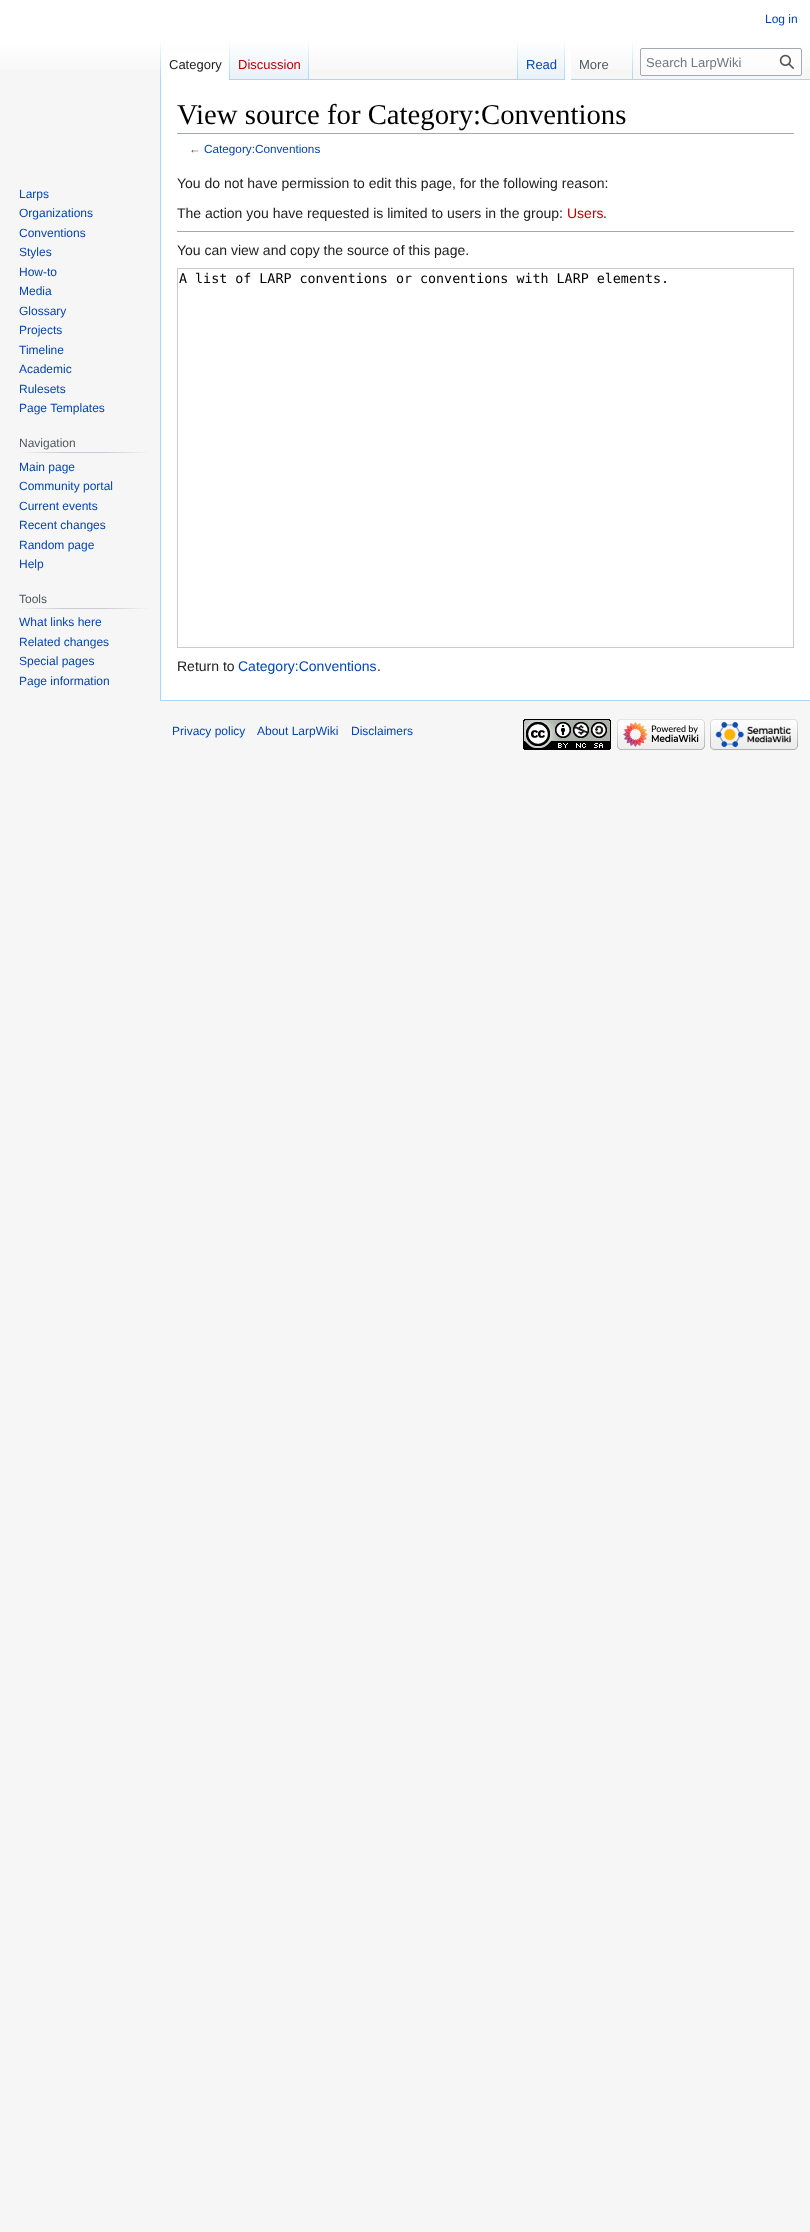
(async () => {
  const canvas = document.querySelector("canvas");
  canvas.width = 810;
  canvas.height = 2232;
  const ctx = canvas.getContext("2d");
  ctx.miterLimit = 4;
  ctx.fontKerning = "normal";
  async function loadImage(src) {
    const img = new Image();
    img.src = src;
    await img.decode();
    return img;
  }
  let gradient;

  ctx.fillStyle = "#f6f6f6";
  ctx.fillRect(0, 0, 810, 2232);
  gradient = ctx.createLinearGradient(405, 0, 405, 80);
  gradient.addColorStop(0.5, "#ffffff");
  gradient.addColorStop(1, "#f6f6f6");
  ctx.fillStyle = gradient;
  ctx.fillRect(0, 0, 810, 69);
  ctx.fillStyle = "#a7d7f9";
  ctx.fillRect(160, 700, 650, 1);
  ctx.fillRect(160, 79, 1, 622);
  gradient = ctx.createLinearGradient(161, 40, 161, 80);
  gradient.addColorStop(0, "rgba(167, 215, 249, 0)");
  gradient.addColorStop(1, "#a7d7f9");
  ctx.fillStyle = gradient;
  ctx.fillRect(160, 40, 1, 40);
  ctx.fillStyle = "#ffffff";
  ctx.fillRect(161, 51, 68, 29);
  gradient = ctx.createLinearGradient(230, 40, 230, 80);
  gradient.addColorStop(0, "#ffffff");
  gradient.addColorStop(1, "#a7d7f9");
  ctx.fillStyle = gradient;
  ctx.fillRect(229, 40, 1, 40);
  gradient = ctx.createLinearGradient(270, 80, 270, 40);
  gradient.addColorStop(0, "#77c1f6");
  gradient.addColorStop(0.03, "#e8f2f8");
  gradient.addColorStop(1, "#ffffff");
  ctx.fillStyle = gradient;
  ctx.fillRect(230, 46, 79, 34);
  gradient = ctx.createLinearGradient(309, 40, 309, 80);
  gradient.addColorStop(0, "rgba(167, 215, 249, 0)");
  gradient.addColorStop(1, "#a7d7f9");
  ctx.fillStyle = gradient;
  ctx.fillRect(308, 40, 1, 40);
  ctx.fillStyle = "#a7d7f9";
  ctx.fillRect(309, 79, 501, 1);
  gradient = ctx.createLinearGradient(518, 40, 518, 80);
  gradient.addColorStop(0, "rgba(167, 215, 249, 0)");
  gradient.addColorStop(1, "#a7d7f9");
  ctx.fillStyle = gradient;
  ctx.fillRect(517, 40, 1, 40);
  gradient = ctx.createLinearGradient(542, 80, 542, 40);
  gradient.addColorStop(0, "#77c1f6");
  gradient.addColorStop(0.03, "#e8f2f8");
  gradient.addColorStop(1, "#ffffff");
  ctx.fillStyle = gradient;
  ctx.fillRect(518, 46, 47, 33);
  gradient = ctx.createLinearGradient(565, 40, 565, 80);
  gradient.addColorStop(0, "rgba(167, 215, 249, 0)");
  gradient.addColorStop(1, "#a7d7f9");
  ctx.fillStyle = gradient;
  ctx.fillRect(564, 40, 1, 40);
  ctx.fillStyle = "#ffffff";
  ctx.fillRect(565, 51, 6, 29);
  gradient = ctx.createLinearGradient(633, 40, 633, 80);
  gradient.addColorStop(0, "rgba(167, 215, 249, 0)");
  gradient.addColorStop(1, "#a7d7f9");
  ctx.fillStyle = gradient;
  ctx.fillRect(632, 40, 1, 40);
  ctx.fillStyle = "rgba(255, 255, 255, 0.5)";
  ctx.beginPath();
  ctx.roundRect(640.5, 48.5, 161, 27, 1.5);
  ctx.fill();
  ctx.strokeStyle = "#a2a9b1";
  ctx.stroke();
  ctx.drawImage(await loadImage("img/1.png"), 779, 54, 15, 15);
  gradient = ctx.createLinearGradient(19, 453, 150, 453);
  gradient.addColorStop(0, "#f6f6f6");
  gradient.addColorStop(0.33, "#c8ccd1");
  gradient.addColorStop(0.66, "#c8ccd1");
  gradient.addColorStop(1, "#f6f6f6");
  ctx.fillStyle = gradient;
  ctx.fillRect(19, 452, 131, 1);
  gradient = ctx.createLinearGradient(19, 609, 150, 609);
  gradient.addColorStop(0, "#f6f6f6");
  gradient.addColorStop(0.33, "#c8ccd1");
  gradient.addColorStop(0.66, "#c8ccd1");
  gradient.addColorStop(1, "#f6f6f6");
  ctx.fillStyle = gradient;
  ctx.fillRect(19, 608, 131, 1);
  for (const [x, y, w, h, color] of [
    [161, 80, 649, 620, "#ffffff"],
    [177, 133, 617, 1, "#a2a9b1"],
    [177, 231, 617, 1, "#a2a9b1"],
  ]) {
    ctx.fillStyle = color;
    ctx.fillRect(x, y, w, h);
  }
  ctx.strokeStyle = "#c8ccd1";
  ctx.strokeRect(177.5, 268.5, 616, 379);
  ctx.drawImage(await loadImage("img/2.png"), 523, 719, 88, 31);
  ctx.drawImage(await loadImage("img/3.png"), 617, 719, 88, 31);
  ctx.drawImage(await loadImage("img/4.png"), 710, 719, 88, 31);
  ctx.font = "12px Liberation Sans";
  ctx.fillStyle = "#0645ad";
  ctx.fillText("Log in", 765, 23);
  ctx.font = "13px Liberation Sans";
  ctx.fillStyle = "#202122";
  ctx.fillText("Category", 169, 69);
  ctx.fillStyle = "#ba0000";
  ctx.fillText("Discussion", 238, 69);
  ctx.fillStyle = "#0645ad";
  ctx.fillText("Read", 526, 69);
  ctx.fillStyle = "#54595d";
  ctx.fillText("More", 579, 69);
  ctx.fillStyle = "#72777d";
  ctx.fillText("Search LarpWiki", 646, 67);
  ctx.font = "12px Liberation Sans";
  ctx.fillStyle = "#0645ad";
  for (const [text, x, y] of [
    ["Larps", 19, 198],
    ["Organizations", 19, 217],
    ["Conventions", 19, 237],
    ["Styles", 19, 256],
    ["How-to", 19, 276],
    ["Media", 19, 295],
    ["Glossary", 19, 315],
    ["Projects", 19, 334],
    ["Timeline", 19, 354],
    ["Academic", 19, 373],
    ["Rulesets", 19, 393],
    ["Page Templates", 19, 412],
  ]) {
    ctx.fillText(text, x, y);
  }
  ctx.fillStyle = "#54595d";
  ctx.fillText("Navigation", 19, 447);
  ctx.fillStyle = "#0645ad";
  for (const [text, x, y] of [
    ["Main page", 19, 471],
    ["Community portal", 19, 490],
    ["Current events", 19, 510],
    ["Recent changes", 19, 529],
    ["Random page", 19, 549],
    ["Help", 19, 568],
  ]) {
    ctx.fillText(text, x, y);
  }
  ctx.fillStyle = "#54595d";
  ctx.fillText("Tools", 19, 603);
  ctx.fillStyle = "#0645ad";
  for (const [text, x, y] of [
    ["What links here", 19, 626],
    ["Related changes", 19, 646],
    ["Special pages", 19, 665],
    ["Page information", 19, 685],
  ]) {
    ctx.fillText(text, x, y);
  }
  ctx.font = "28.75px Liberation Serif";
  ctx.fillStyle = "#000000";
  ctx.fillText("View source for Category:Conventions", 177, 124);
  ctx.font = "11.75px Liberation Sans";
  ctx.fillStyle = "#54595d";
  ctx.fillText("←", 189, 153);
  ctx.fillStyle = "#0645ad";
  ctx.fillText("Category:Conventions", 204, 153);
  ctx.font = "14px Liberation Sans";
  ctx.fillStyle = "#202122";
  ctx.fillText("You do not have permission to edit this page, for the following reason:", 177, 188);
  ctx.fillText("The action you have requested is limited to users in the group:", 177, 218);
  ctx.fillStyle = "#ba0000";
  ctx.fillText("Users", 567, 218);
  ctx.fillStyle = "#202122";
  ctx.fillText(".", 603, 218);
  ctx.fillText("You can view and copy the source of this page.", 177, 255);
  ctx.font = "13.35px DejaVu Sans Mono";
  ctx.fillStyle = "#000000";
  ctx.fillText("A list of LARP conventions or conventions with LARP elements.", 179, 283);
  ctx.font = "14px Liberation Sans";
  ctx.fillStyle = "#202122";
  ctx.fillText("Return to", 177, 671);
  ctx.fillStyle = "#0645ad";
  ctx.fillText("Category:Conventions", 238, 671);
  ctx.fillStyle = "#202122";
  ctx.fillText(".", 377, 671);
  ctx.font = "12px Liberation Sans";
  ctx.fillStyle = "#0645ad";
  for (const [text, x, y] of [
    ["Privacy policy", 172, 735],
    ["About LarpWiki", 257, 735],
    ["Disclaimers", 351, 735],
  ]) {
    ctx.fillText(text, x, y);
  }
})();
